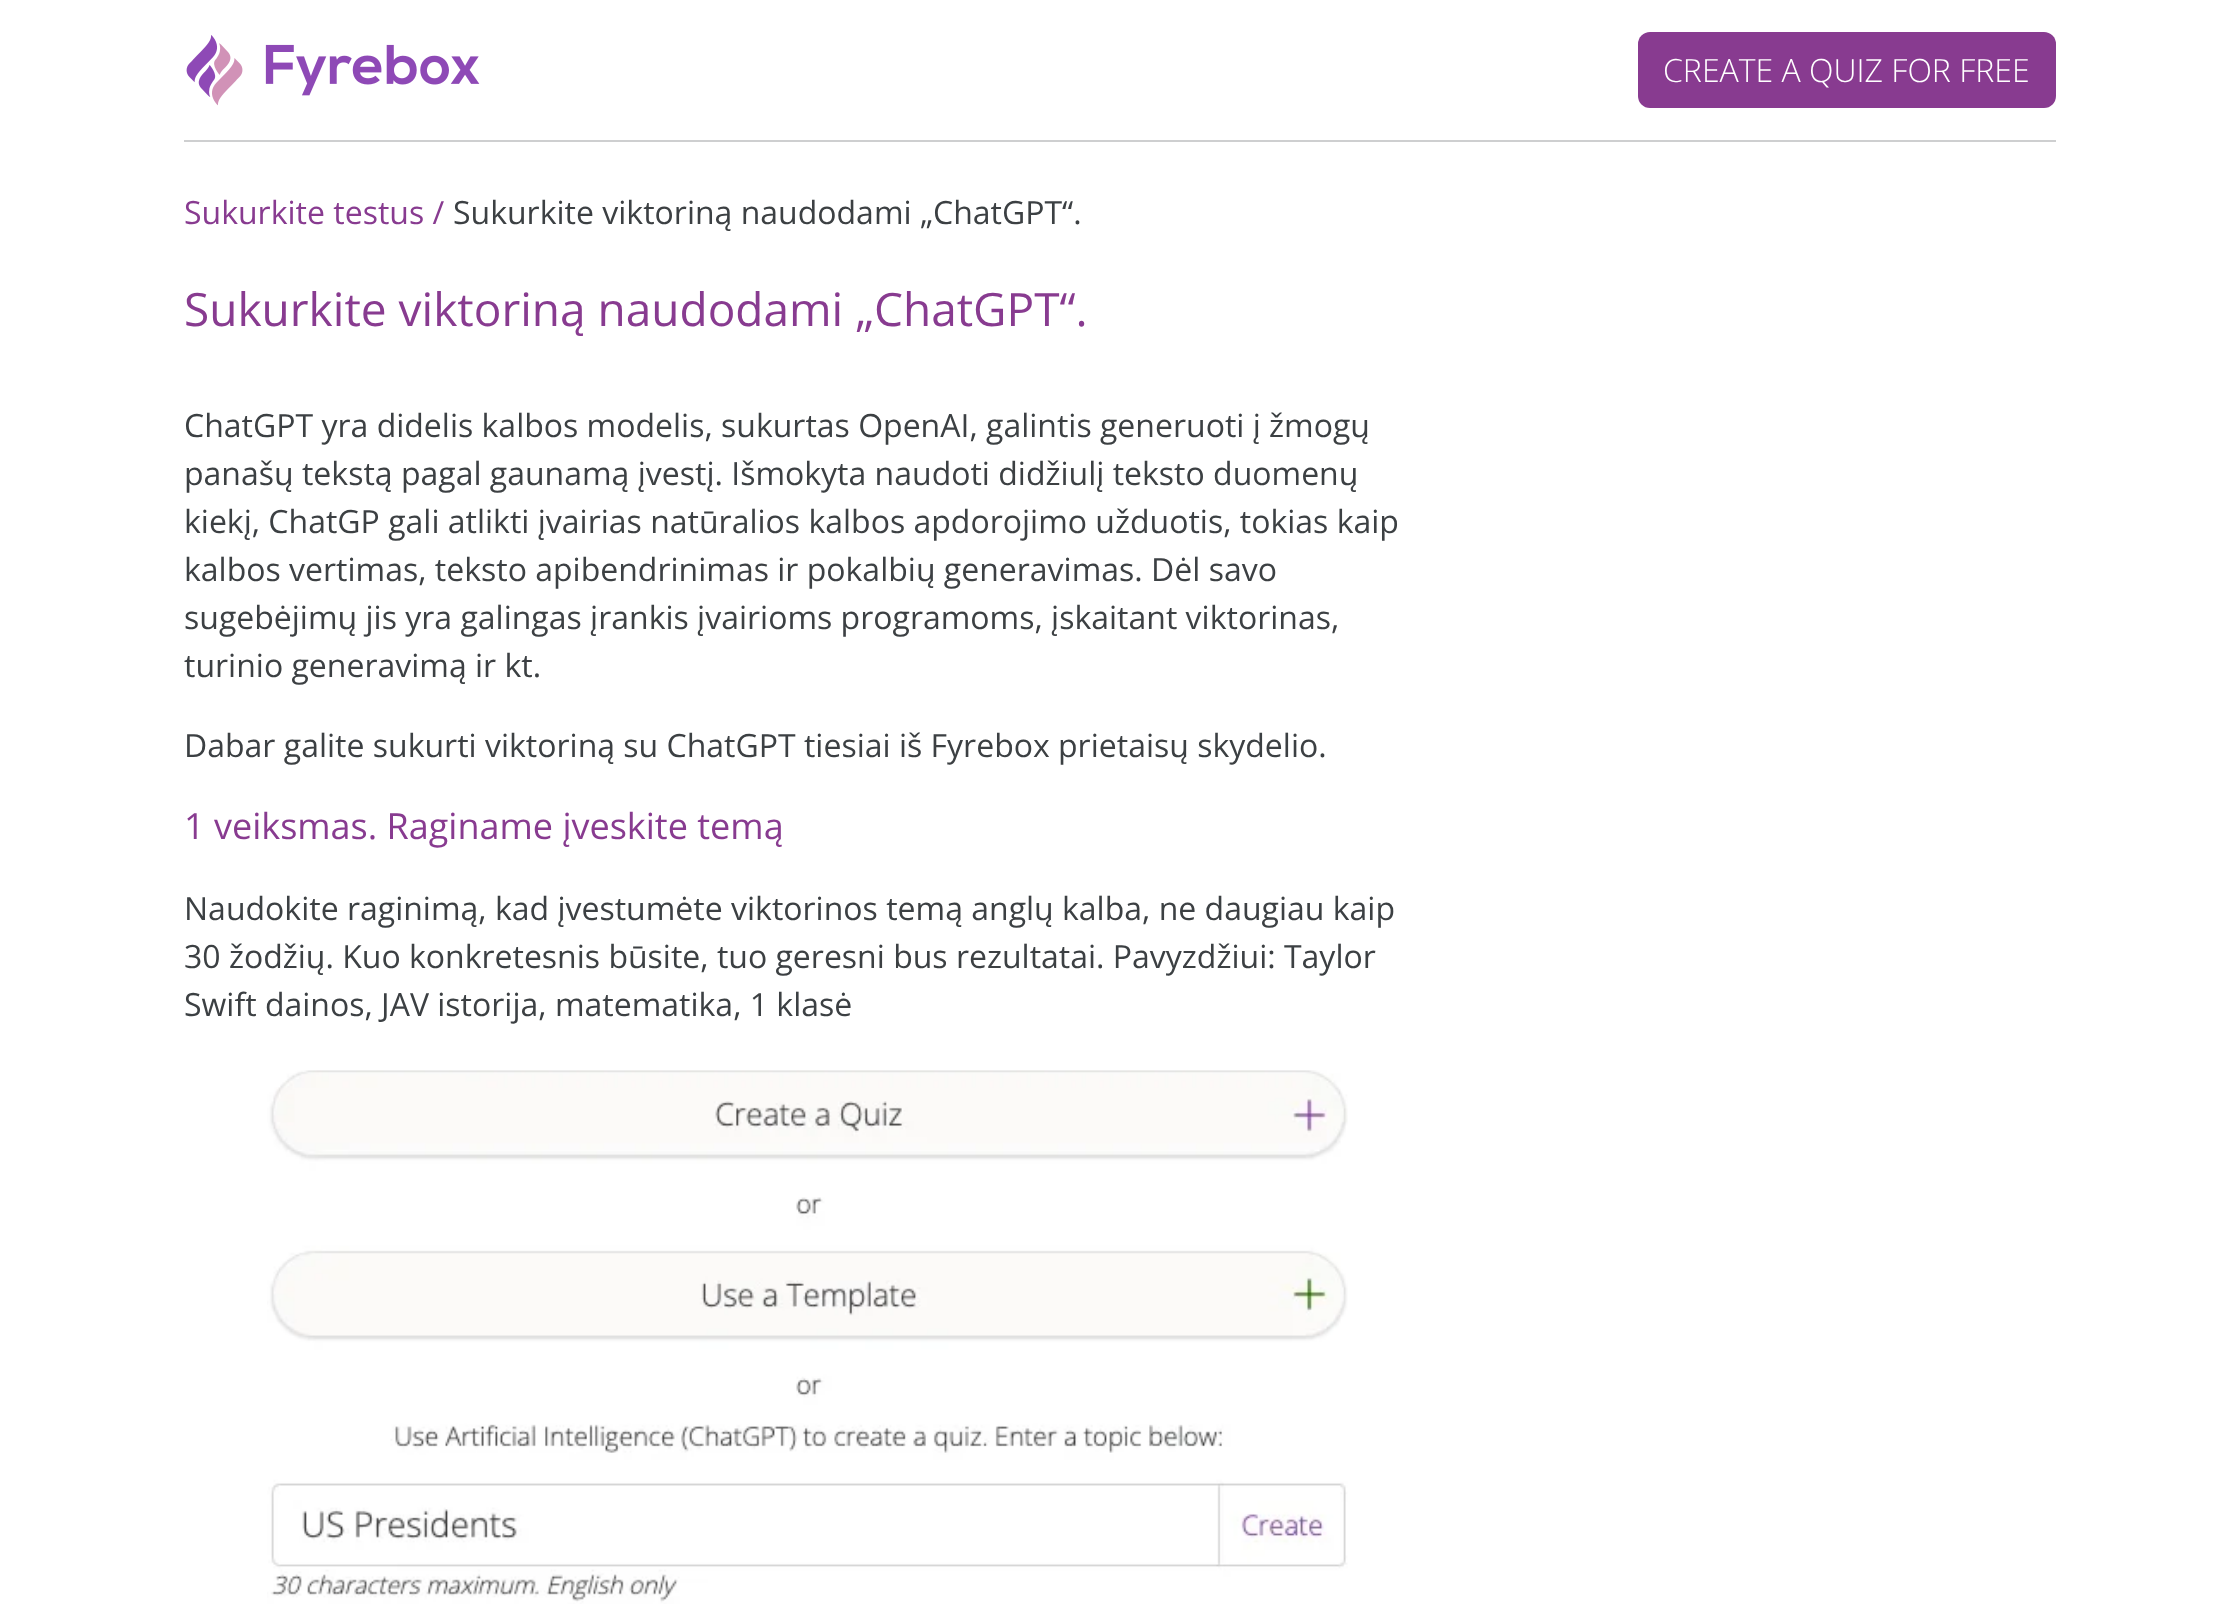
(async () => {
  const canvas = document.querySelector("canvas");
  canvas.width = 2239;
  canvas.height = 1623;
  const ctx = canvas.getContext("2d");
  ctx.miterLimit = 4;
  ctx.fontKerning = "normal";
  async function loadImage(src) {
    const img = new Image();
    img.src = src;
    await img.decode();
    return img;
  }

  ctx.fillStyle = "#ffffff";
  ctx.fillRect(0, 0, 2239, 1623);
  ctx.drawImage(await loadImage("img/1.png"), 186, 35, 294, 71);
  ctx.fillStyle = "#883b90";
  ctx.beginPath();
  ctx.roundRect(1638, 32, 418, 76, 12);
  ctx.fill();
  ctx.fillStyle = "#cecfd0";
  ctx.fillRect(184, 140, 1872, 2);
  ctx.drawImage(await loadImage("img/2.png"), 267, 1070, 1081, 534);
  ctx.font = "300 32px Open Sans";
  ctx.fillStyle = "#ffffff";
  ctx.fillText("CREATE A QUIZ FOR FREE", 1663, 82);
  ctx.font = "32px Open Sans";
  ctx.fillStyle = "#883b90";
  ctx.fillText("Sukurkite testus /", 184, 224);
  ctx.fillStyle = "#3c4043";
  ctx.fillText("Sukurkite viktoriną naudodami „ChatGPT“.", 453, 224);
  ctx.font = "46px Open Sans";
  ctx.fillStyle = "#883b90";
  ctx.fillText("Sukurkite viktoriną naudodami „ChatGPT“.", 184, 326);
  ctx.font = "32px Open Sans";
  ctx.fillStyle = "#3c4043";
  for (const [text, x, y] of [
    ["ChatGPT yra didelis kalbos modelis, sukurtas OpenAI, galintis generuoti į žmogų", 184, 437],
    ["panašų tekstą pagal gaunamą įvestį. Išmokyta naudoti didžiulį teksto duomenų", 184, 485],
    ["kiekį, ChatGP gali atlikti įvairias natūralios kalbos apdorojimo užduotis, tokias kaip", 184, 533],
    ["kalbos vertimas, teksto apibendrinimas ir pokalbių generavimas. Dėl savo", 184, 581],
    ["sugebėjimų jis yra galingas įrankis įvairioms programoms, įskaitant viktorinas,", 184, 629],
    ["turinio generavimą ir kt.", 184, 677],
    ["Dabar galite sukurti viktoriną su ChatGPT tiesiai iš Fyrebox prietaisų skydelio.", 184, 757],
  ]) {
    ctx.fillText(text, x, y);
  }
  ctx.font = "36px Open Sans";
  ctx.fillStyle = "#883b90";
  ctx.fillText("1 veiksmas. Raginame įveskite temą", 184, 839);
  ctx.font = "32px Open Sans";
  ctx.fillStyle = "#3c4043";
  for (const [text, x, y] of [
    ["Naudokite raginimą, kad įvestumėte viktorinos temą anglų kalba, ne daugiau kaip", 184, 920],
    ["30 žodžių. Kuo konkretesnis būsite, tuo geresni bus rezultatai. Pavyzdžiui: Taylor", 184, 968],
    ["Swift dainos, JAV istorija, matematika, 1 klasė", 184, 1016],
  ]) {
    ctx.fillText(text, x, y);
  }
})();
